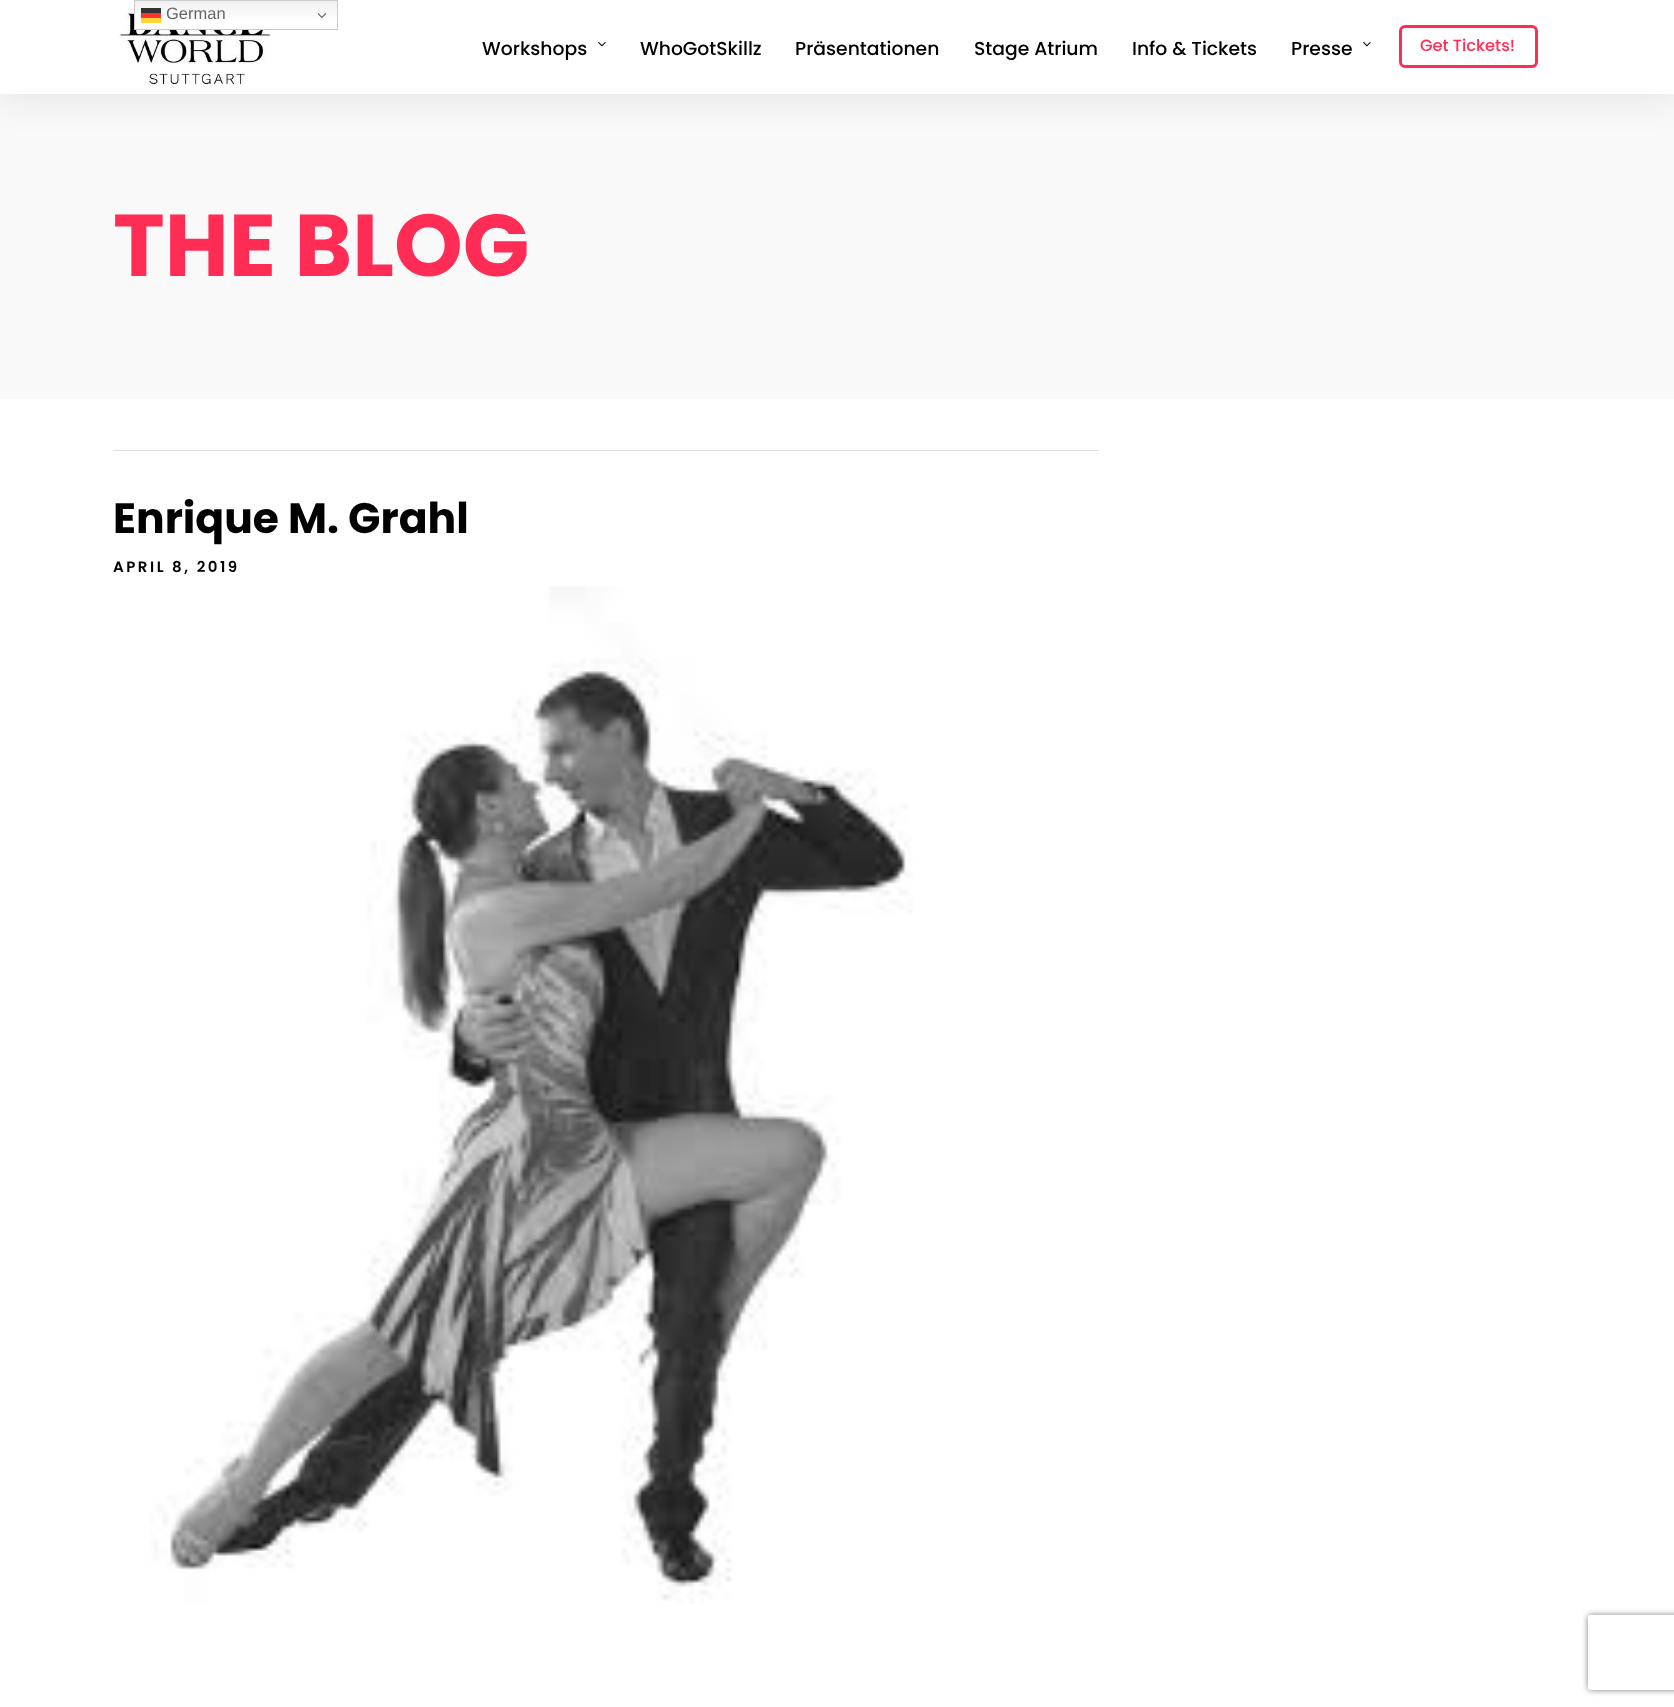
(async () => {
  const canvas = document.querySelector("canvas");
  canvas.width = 1674;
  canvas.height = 1707;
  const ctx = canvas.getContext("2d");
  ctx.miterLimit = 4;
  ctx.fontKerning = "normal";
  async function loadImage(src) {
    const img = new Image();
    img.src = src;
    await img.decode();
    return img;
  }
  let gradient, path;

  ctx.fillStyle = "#ffffff";
  ctx.fillRect(0, 0, 1674, 1707);
  ctx.fillStyle = "#f9f9f9";
  ctx.fillRect(0, 94, 1674, 305);
  ctx.fillStyle = "rgba(0, 0, 0, 0.1)";
  ctx.filter = "blur(19px)";
  ctx.beginPath();
  ctx.rect(0, 1, 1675, 94);
  ctx.fill();
  ctx.filter = "none";
  ctx.fillStyle = "#ffffff";
  ctx.fillRect(0, 0, 1674, 94);
  ctx.drawImage(await loadImage("img/2.png"), 117, 9, 154, 80);
  gradient = ctx.createLinearGradient(236, 0, 236, 30);
  gradient.addColorStop(0, "#efefef");
  gradient.addColorStop(0.7, "#ffffff");
  ctx.fillStyle = gradient;
  ctx.fillRect(135, 1, 202, 28);
  ctx.strokeStyle = "#cccccc";
  ctx.strokeRect(134.5, 0.5, 203, 29);
  ctx.fillStyle = "rgba(0, 0, 0, 0.8)";
  ctx.fillRect(141, 8, 20, 5);
  ctx.fillStyle = "rgba(255, 0, 0, 0.8)";
  ctx.fillRect(141, 13, 20, 5);
  ctx.drawImage(await loadImage("img/1.png"), 318, 13, 8, 6);
  ctx.fillStyle = "#ffd633";
  ctx.fillRect(141, 18, 20, 5);
  ctx.drawImage(await loadImage("img/3.png"), 598, 42, 8, 5);
  ctx.drawImage(await loadImage("img/3.png"), 1363, 42, 8, 5);
  ctx.beginPath();
  ctx.roundRect(1400.5, 26.5, 136, 40, 4.5);
  ctx.strokeStyle = "#ff2d55";
  ctx.lineWidth = 3;
  ctx.stroke();
  ctx.fillStyle = "#dce0e0";
  ctx.fillRect(113, 450, 986, 1);
  ctx.drawImage(await loadImage("img/4.png"), 150, 586, 763, 1018);
  ctx.save();
  path = new Path2D("M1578 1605H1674V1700H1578ZM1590.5 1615H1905.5C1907 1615 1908 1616 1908 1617.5V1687.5C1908 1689 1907 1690 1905.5 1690H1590.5C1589 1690 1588 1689 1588 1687.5V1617.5C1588 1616 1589 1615 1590.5 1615Z");
  ctx.clip(path, "evenodd");
  ctx.fillStyle = "#808080";
  ctx.filter = "blur(3px)";
  ctx.beginPath();
  ctx.roundRect(1588, 1615, 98, 75, 2.5);
  ctx.fill();
  ctx.filter = "none";
  ctx.restore();
  ctx.font = "16.5px Liberation Sans";
  ctx.fillStyle = "#666666";
  ctx.fillText("German", 166, 19);
  ctx.font = "500 18.75px Poppins";
  ctx.fillStyle = "#000000";
  for (const [text, x, y] of [
    ["Workshops", 482, 55],
    ["WhoGotSkillz", 640, 55],
    ["Präsentationen", 795, 55],
    ["Stage Atrium", 974, 55],
    ["Info & Tickets", 1132, 55],
    ["Presse", 1291, 55],
  ]) {
    ctx.fillText(text, x, y);
  }
  ctx.font = "500 16.25px Poppins";
  ctx.fillStyle = "#ff2d55";
  ctx.fillText("Get Tickets!", 1420, 51);
  ctx.font = "bold 87.5px Poppins";
  ctx.fillText("THE BLOG", 113, 276);
  ctx.font = "bold 42.5px Poppins";
  ctx.fillStyle = "#000000";
  ctx.fillText("Enrique M. Grahl", 113, 533);
  ctx.letterSpacing = "2.5px";
  ctx.font = "600 15px Poppins";
  ctx.fillText("APRIL 8, 2019", 113, 572);
})();
